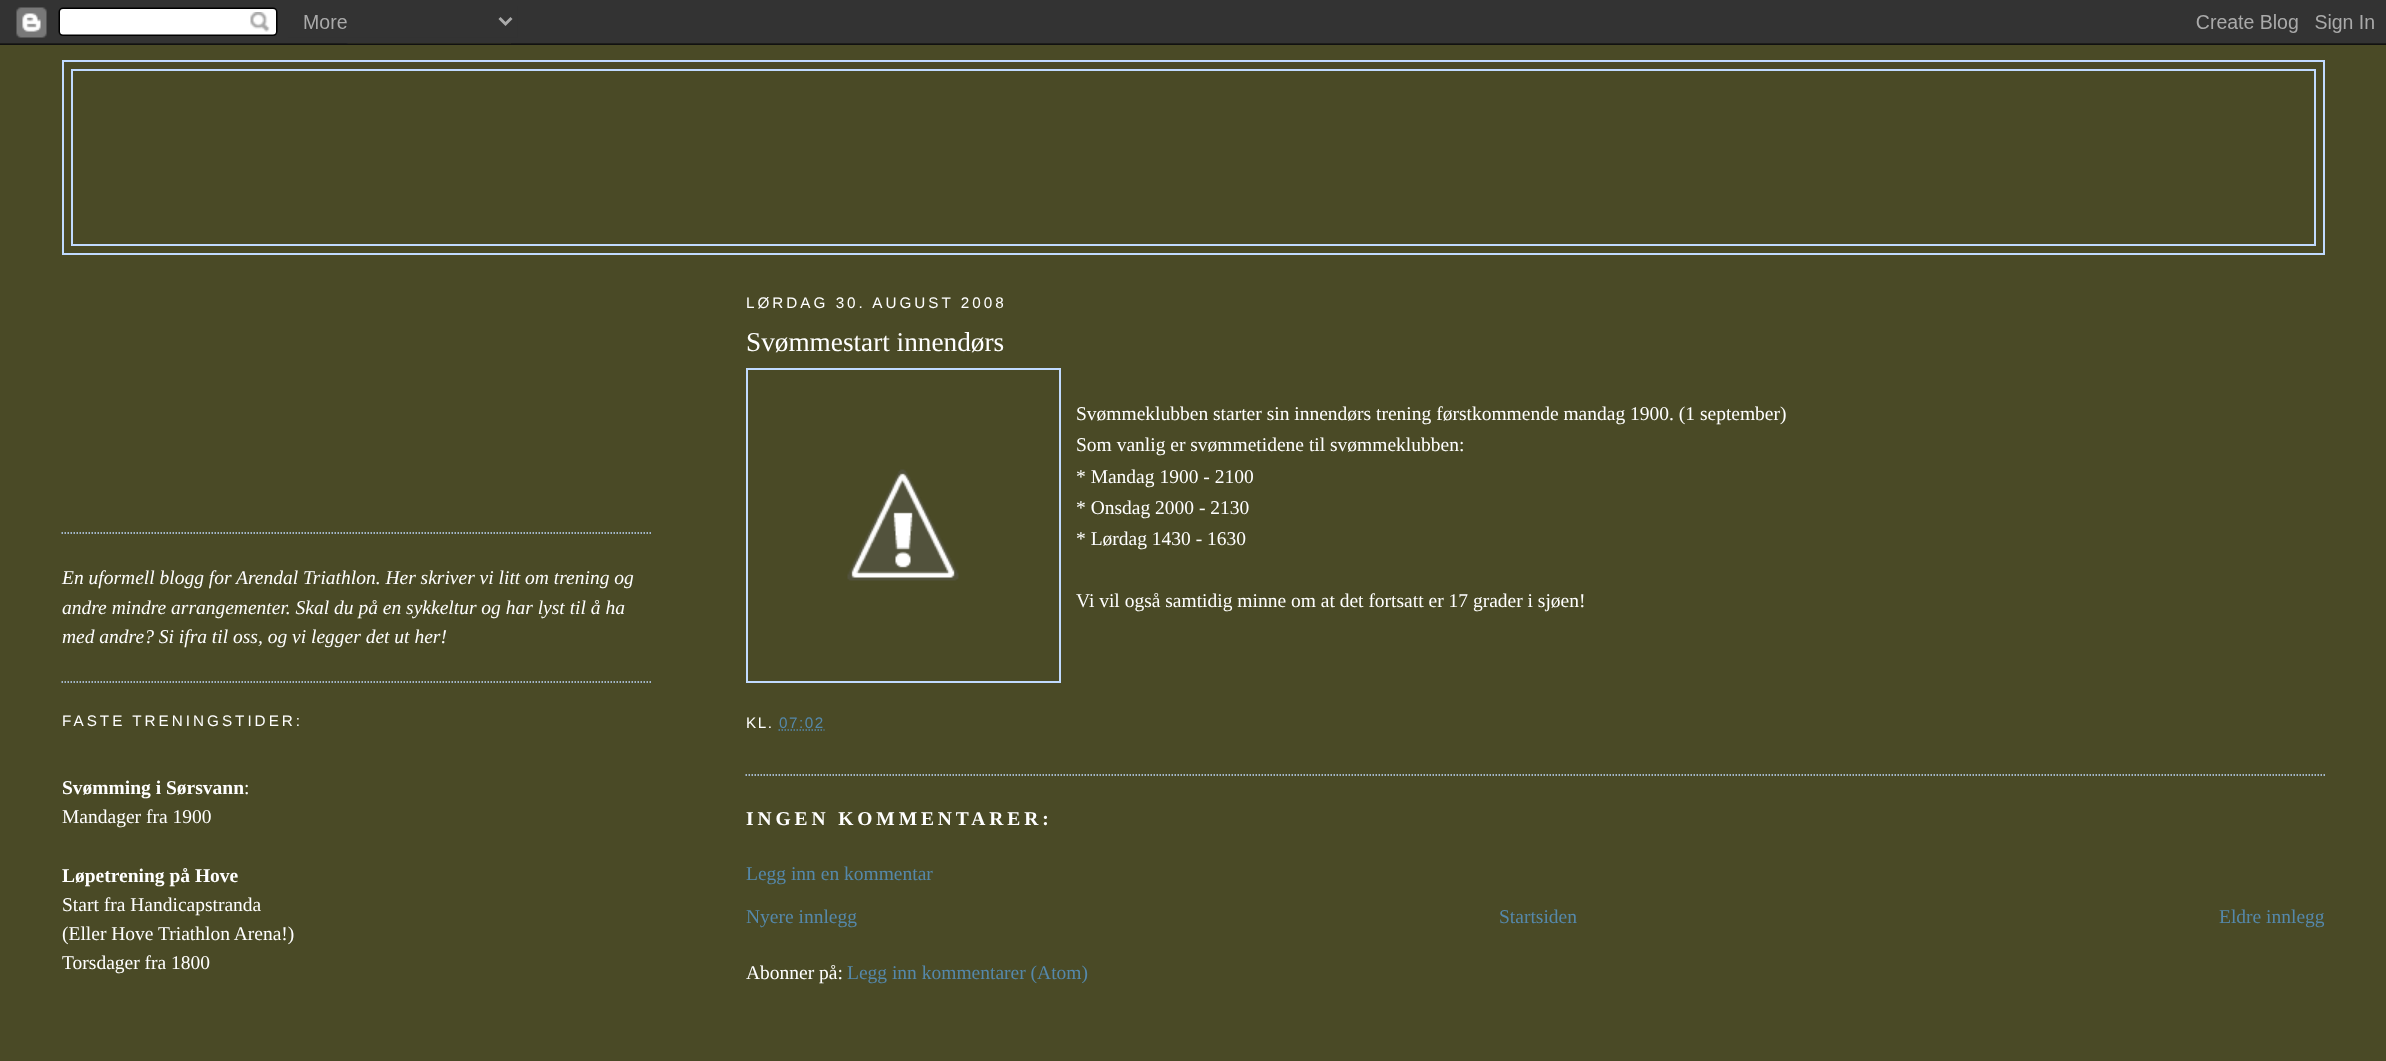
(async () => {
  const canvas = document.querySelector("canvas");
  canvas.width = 2386;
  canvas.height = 1061;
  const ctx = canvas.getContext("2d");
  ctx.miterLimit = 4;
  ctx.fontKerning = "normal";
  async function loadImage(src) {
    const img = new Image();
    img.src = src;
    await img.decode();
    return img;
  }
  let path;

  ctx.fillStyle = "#4a4a26";
  ctx.fillRect(0, 0, 2386, 1061);
  ctx.drawImage(await loadImage("img/1.png"), 0, 0, 2386, 45);
  ctx.strokeStyle = "#c1dbff";
  ctx.lineWidth = 2;
  ctx.strokeRect(63, 61, 2261, 193);
  ctx.strokeRect(72, 70, 2243, 175);
  path = new Path2D("M61.5 533H651");
  ctx.lineWidth = 1.5;
  ctx.setLineDash([1.5, 1.5]);
  ctx.stroke(path);
  path = new Path2D("M61.5 682H651");
  ctx.stroke(path);
  path = new Path2D("M745.5 775H2325");
  ctx.stroke(path);
  ctx.lineWidth = 2;
  ctx.setLineDash([]);
  ctx.strokeRect(747, 369, 313, 313);
  ctx.drawImage(await loadImage("img/2.png"), 847, 469, 112, 112);
  path = new Path2D("M778.5 730H824.5");
  ctx.strokeStyle = "#5588aa";
  ctx.lineWidth = 1.5;
  ctx.setLineDash([1.5, 1.5]);
  ctx.stroke(path);
  ctx.font = "italic 19.5px Liberation Serif";
  ctx.fillStyle = "#ffffff";
  for (const [text, x, y] of [
    ["En uformell blogg for Arendal Triathlon. Her skriver vi litt om trening og", 62, 584],
    ["andre mindre arrangementer. Skal du på en sykkeltur og har lyst til å ha", 62, 614],
    ["med andre? Si ifra til oss, og vi legger det ut her!", 62, 643],
  ]) {
    ctx.fillText(text, x, y);
  }
  ctx.letterSpacing = "3px";
  ctx.font = "15.25px Liberation Sans";
  ctx.fillText("FASTE TRENINGSTIDER:", 62, 726);
  ctx.letterSpacing = "0px";
  ctx.font = "bold 19.5px Liberation Serif";
  ctx.fillText("Svømming i Sørsvann", 62, 794);
  ctx.font = "19.5px Liberation Serif";
  ctx.fillText(":", 244, 794);
  ctx.fillText("Mandager fra 1900", 62, 823);
  ctx.font = "bold 19.5px Liberation Serif";
  ctx.fillText("Løpetrening på Hove", 62, 882);
  ctx.font = "19.5px Liberation Serif";
  for (const [text, x, y] of [
    ["Start fra Handicapstranda", 62, 911],
    ["(Eller Hove Triathlon Arena!)", 62, 940],
    ["Torsdager fra 1800", 62, 969],
  ]) {
    ctx.fillText(text, x, y);
  }
  ctx.letterSpacing = "3px";
  ctx.font = "15.25px Liberation Sans";
  ctx.fillText("LØRDAG 30. AUGUST 2008", 746, 308);
  ctx.letterSpacing = "0px";
  ctx.font = "27.25px Liberation Serif";
  ctx.fillText("Svømmestart innendørs", 746, 351);
  ctx.font = "19.5px Liberation Serif";
  for (const [text, x, y] of [
    ["Svømmeklubben starter sin innendørs trening førstkommende mandag 1900. (1 september)", 1076, 420],
    ["Som vanlig er svømmetidene til svømmeklubben:", 1076, 451],
    ["* Mandag 1900 - 2100", 1076, 483],
    ["* Onsdag 2000 - 2130", 1076, 514],
    ["* Lørdag 1430 - 1630", 1076, 545],
    ["Vi vil også samtidig minne om at det fortsatt er 17 grader i sjøen!", 1076, 607],
  ]) {
    ctx.fillText(text, x, y);
  }
  ctx.letterSpacing = "1.5px";
  ctx.font = "15.25px Liberation Sans";
  ctx.fillText("KL.", 746, 728);
  ctx.fillStyle = "#5588aa";
  ctx.fillText("07:02", 779, 728);
  ctx.letterSpacing = "3.9px";
  ctx.font = "bold 19.5px Liberation Serif";
  ctx.fillStyle = "#ffffff";
  ctx.fillText("INGEN KOMMENTARER:", 746, 825);
  ctx.letterSpacing = "0px";
  ctx.font = "19.5px Liberation Serif";
  ctx.fillStyle = "#5588aa";
  for (const [text, x, y] of [
    ["Legg inn en kommentar", 746, 880],
    ["Nyere innlegg", 746, 923],
    ["Startsiden", 1499, 923],
    ["Eldre innlegg", 2219, 923],
  ]) {
    ctx.fillText(text, x, y);
  }
  ctx.fillStyle = "#ffffff";
  ctx.fillText("Abonner på:", 746, 979);
  ctx.fillStyle = "#5588aa";
  ctx.fillText("Legg inn kommentarer (Atom)", 847, 979);
})();
